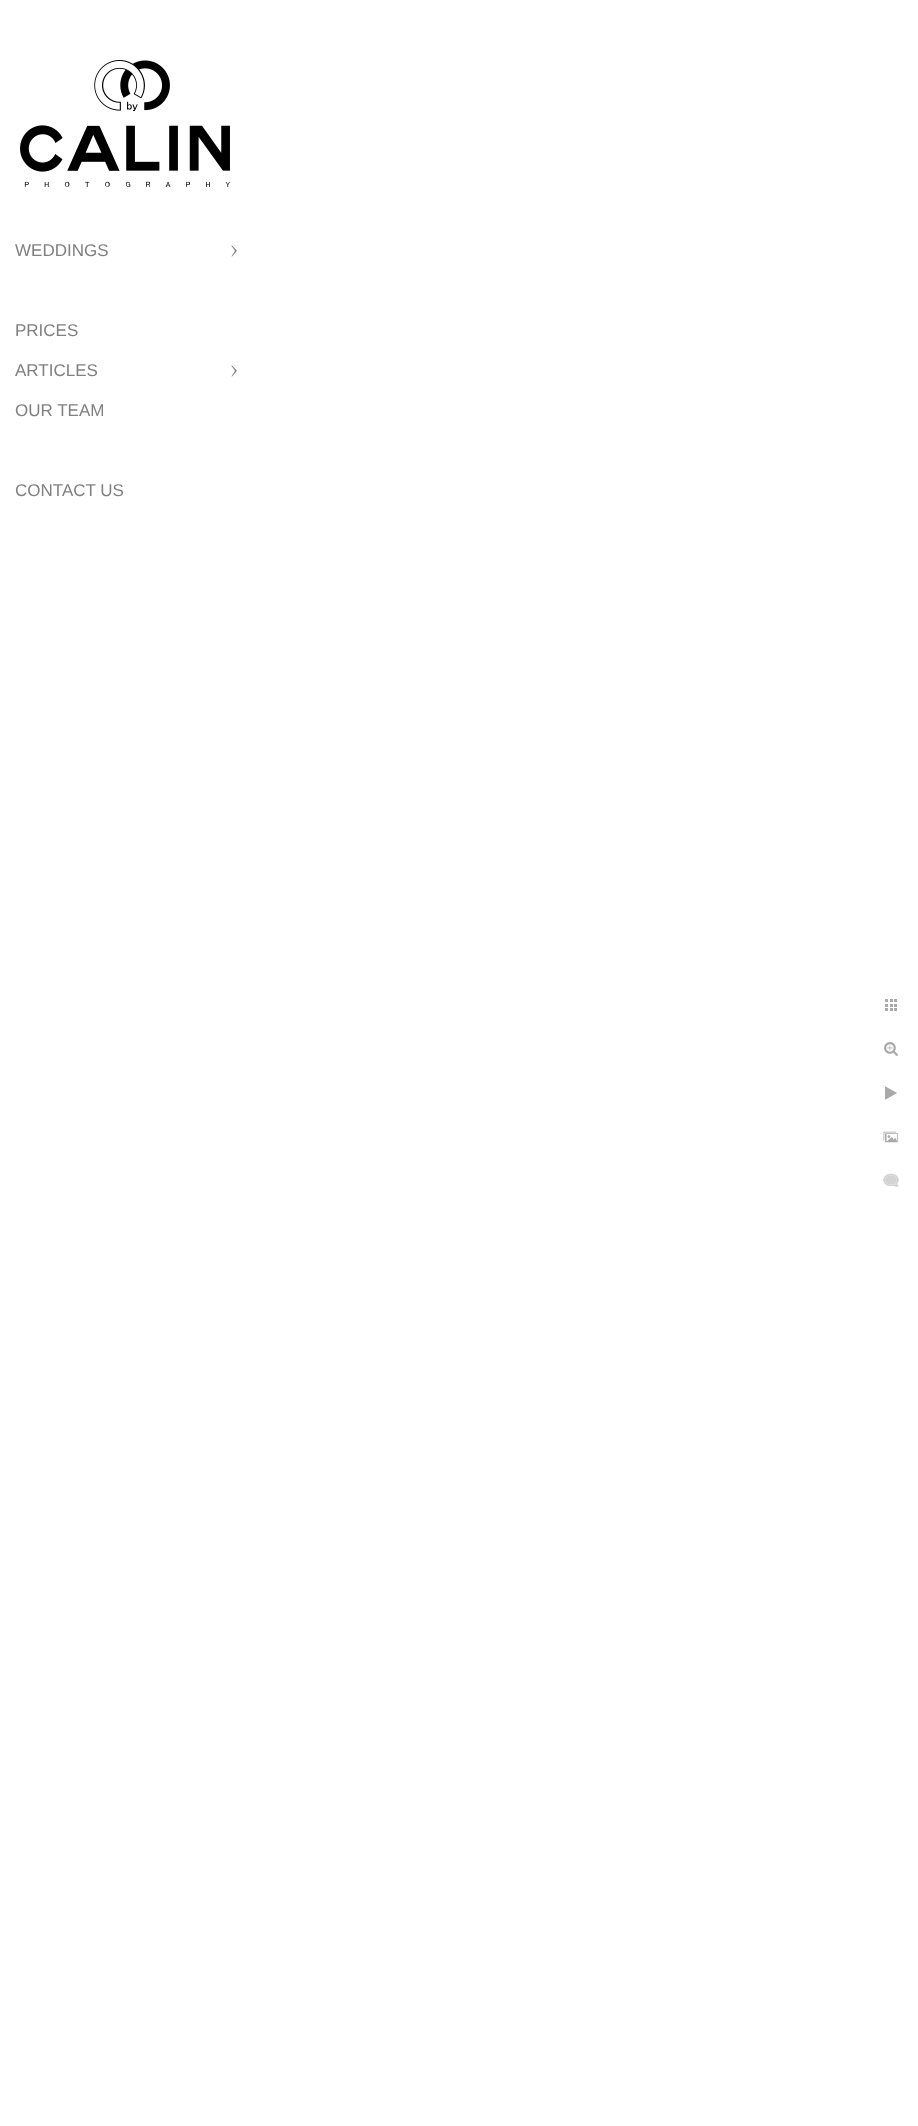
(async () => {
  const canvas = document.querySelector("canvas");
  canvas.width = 918;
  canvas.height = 2126;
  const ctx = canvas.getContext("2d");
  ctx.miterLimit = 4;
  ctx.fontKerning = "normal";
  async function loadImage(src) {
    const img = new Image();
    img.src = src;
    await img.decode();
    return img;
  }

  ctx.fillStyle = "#ffffff";
  ctx.fillRect(0, 0, 918, 2126);
  ctx.drawImage(await loadImage("img/1.png"), 20, 60, 210, 127);
  ctx.drawImage(await loadImage("img/2.png"), 231, 245, 6, 12);
  ctx.drawImage(await loadImage("img/2.png"), 231, 365, 6, 12);
  ctx.drawImage(await loadImage("img/3.png"), 885, 999, 12, 12);
  ctx.drawImage(await loadImage("img/4.png"), 884, 1042, 14, 14);
  ctx.drawImage(await loadImage("img/5.png"), 885, 1086, 12, 14);
  ctx.drawImage(await loadImage("img/6.png"), 883, 1131, 15, 12);
  ctx.drawImage(await loadImage("img/7.png"), 883, 1173, 16, 14);
  ctx.font = "17px Liberation Sans";
  ctx.fillStyle = "#808080";
  for (const [text, x, y] of [
    ["WEDDINGS", 15, 256],
    ["PRICES", 15, 336],
    ["ARTICLES", 15, 376],
    ["OUR TEAM", 15, 416],
    ["CONTACT US", 15, 496],
  ]) {
    ctx.fillText(text, x, y);
  }
})();
